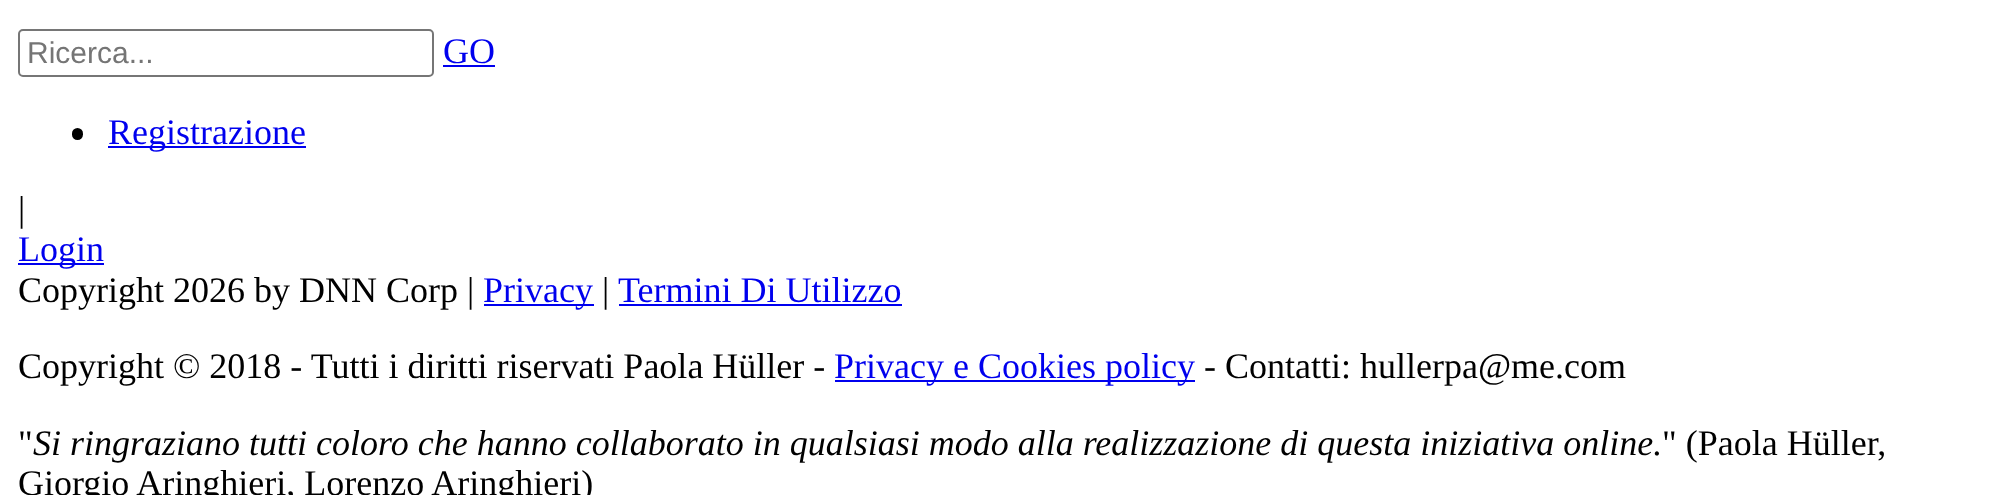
(async () => {
  const canvas = document.querySelector("canvas");
  canvas.width = 2014;
  canvas.height = 495;
  const ctx = canvas.getContext("2d");
  ctx.miterLimit = 4;
  ctx.fontKerning = "normal";

  ctx.fillStyle = "#ffffff";
  ctx.fillRect(0, 0, 2014, 495);
  ctx.beginPath();
  ctx.roundRect(19, 30, 414, 46, 4);
  ctx.strokeStyle = "#767676";
  ctx.lineWidth = 2;
  ctx.stroke();
  ctx.fillStyle = "#0000ee";
  ctx.fillRect(443, 65, 52, 2);
  ctx.fillStyle = "#000000";
  ctx.beginPath();
  ctx.roundRect(72, 128, 11, 12, 5.5);
  ctx.fill();
  for (const [x, y, w, h, color] of [
    [108, 146, 198, 2, "#0000ee"],
    [18, 263, 86, 2, "#0000ee"],
    [484, 304, 110, 2, "#0000ee"],
    [619, 304, 283, 2, "#0000ee"],
    [835, 380, 360, 2, "#0000ee"],
  ]) {
    ctx.fillStyle = color;
    ctx.fillRect(x, y, w, h);
  }
  ctx.font = "30px Liberation Sans";
  ctx.fillStyle = "#757575";
  ctx.fillText("Ricerca...", 27, 63);
  ctx.font = "36px Liberation Serif";
  ctx.fillStyle = "#0000ee";
  ctx.fillText("GO", 443, 63);
  ctx.fillText("Registrazione", 108, 144);
  ctx.fillStyle = "#000000";
  ctx.fillText("|", 18, 221);
  ctx.fillStyle = "#0000ee";
  ctx.fillText("Login", 18, 261);
  ctx.fillStyle = "#000000";
  ctx.fillText("Copyright 2026 by DNN Corp |", 18, 302);
  ctx.fillStyle = "#0000ee";
  ctx.fillText("Privacy", 483, 302);
  ctx.fillStyle = "#000000";
  ctx.fillText("|", 602, 302);
  ctx.fillStyle = "#0000ee";
  ctx.fillText("Termini Di Utilizzo", 618, 302);
  ctx.fillStyle = "#000000";
  ctx.fillText("Copyright © 2018 - Tutti i diritti riservati Paola Hüller -", 18, 378);
  ctx.fillStyle = "#0000ee";
  ctx.fillText("Privacy e Cookies policy", 834, 378);
  ctx.fillStyle = "#000000";
  ctx.fillText("- Contatti: hullerpa@me.com", 1204, 378);
  ctx.fillText("\"", 18, 455);
  ctx.font = "italic 36px Liberation Serif";
  ctx.fillText("Si ringraziano tutti coloro che hanno collaborato in qualsiasi modo alla realizzazione di questa iniziativa online.", 33, 455);
  ctx.font = "36px Liberation Serif";
  ctx.fillText("\" (Paola Hüller,", 1662, 455);
  ctx.fillText("Giorgio Aringhieri, Lorenzo Aringhieri)", 18, 495);
})();
